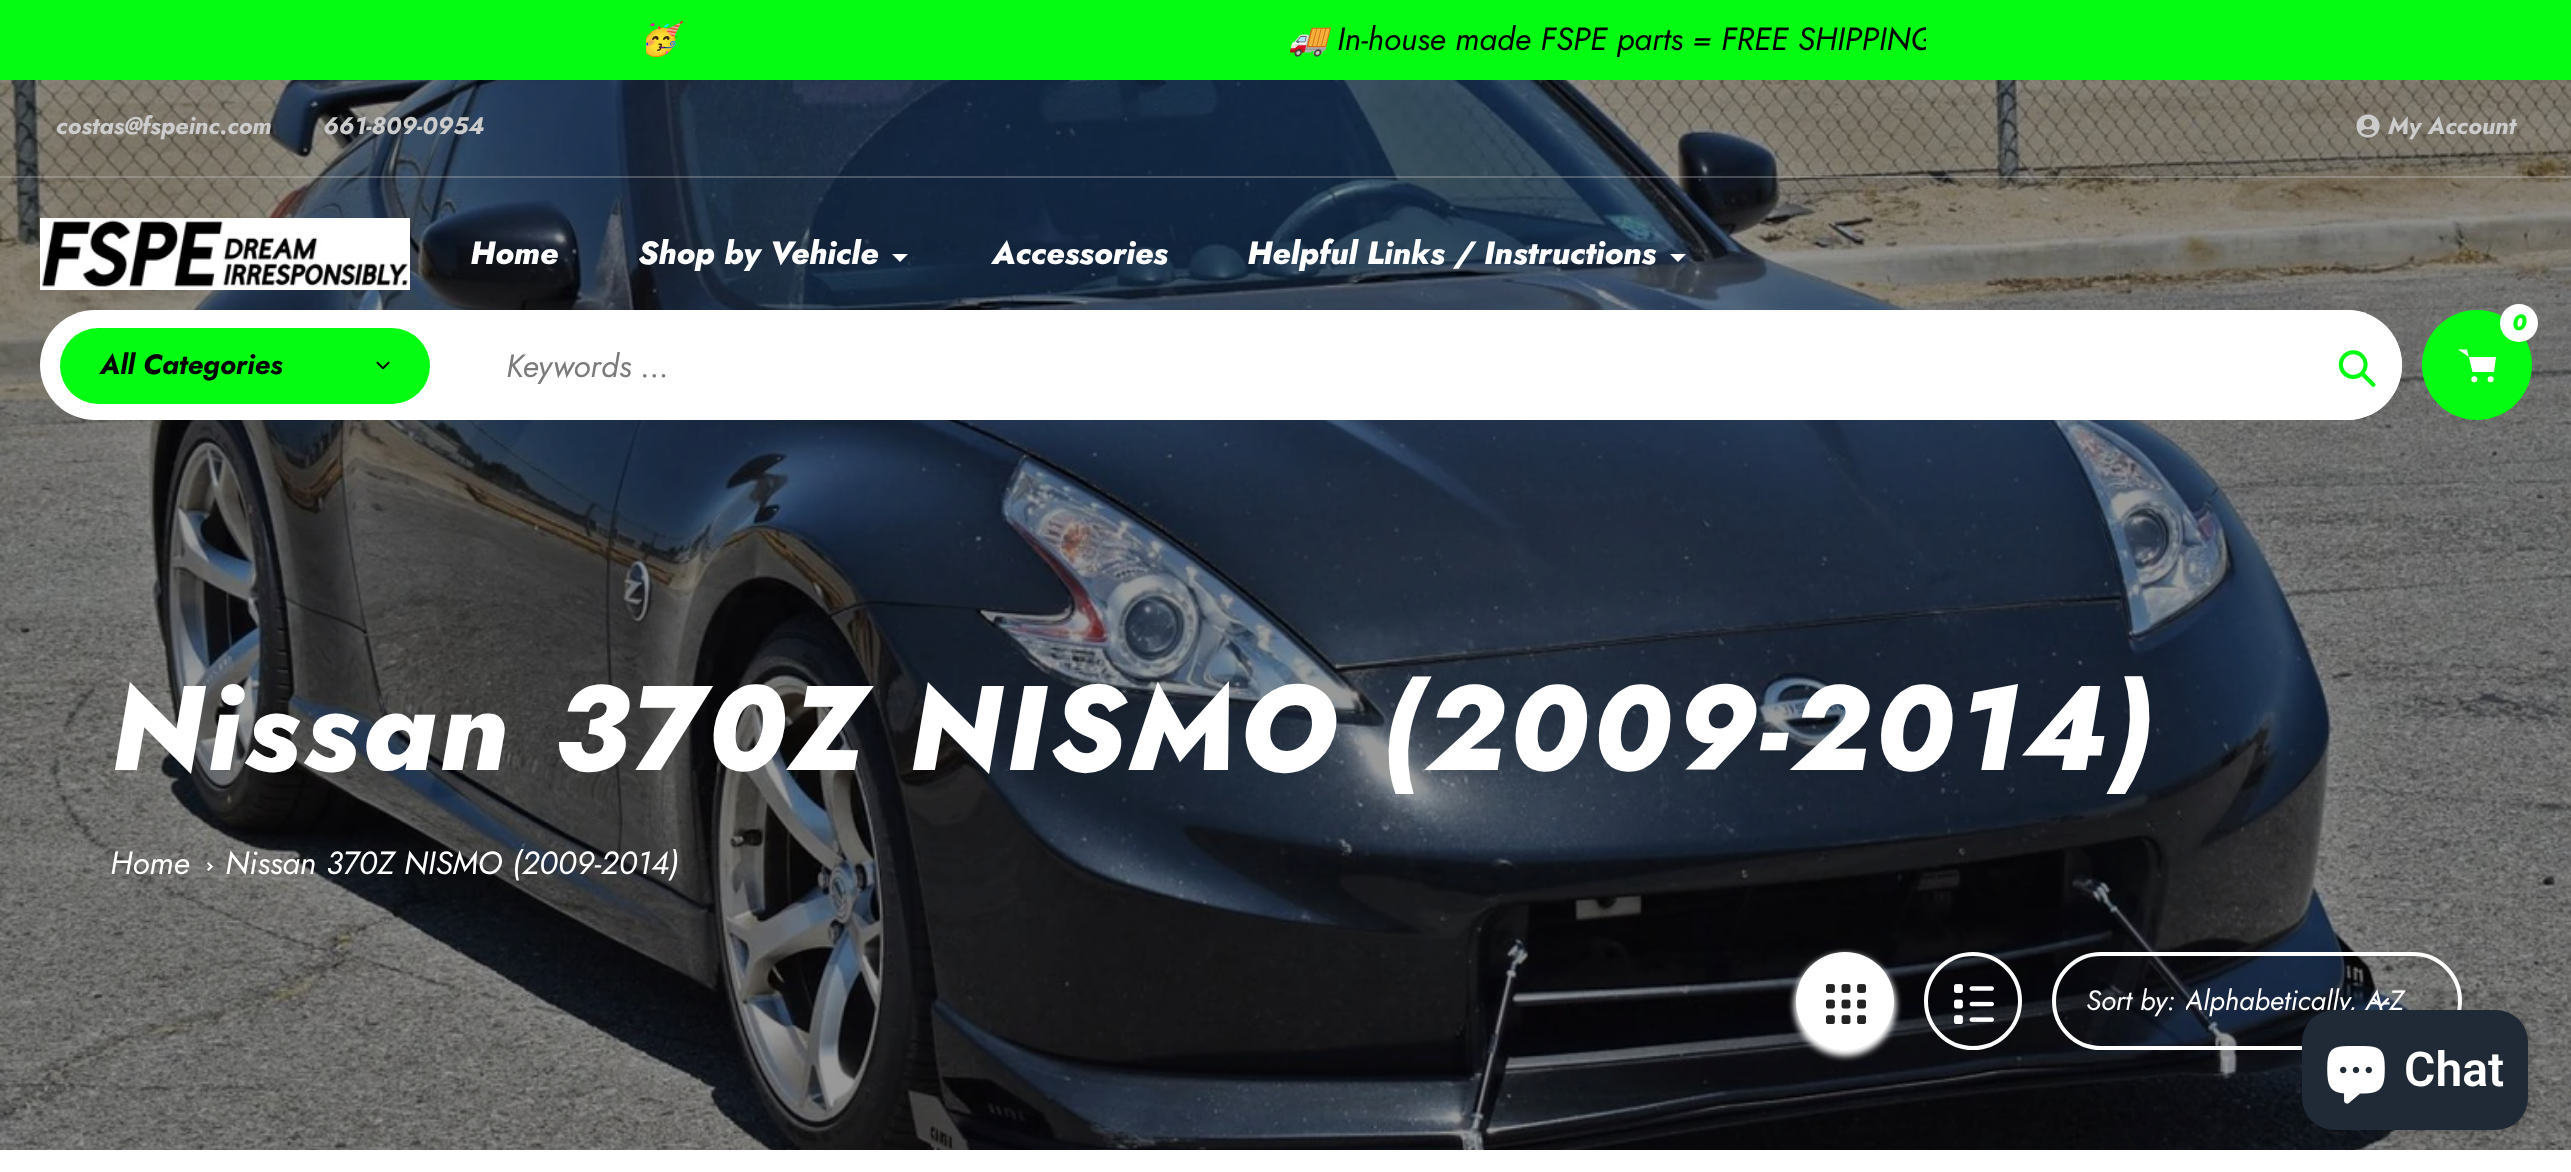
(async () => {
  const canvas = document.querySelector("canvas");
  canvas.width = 2571;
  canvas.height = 1172;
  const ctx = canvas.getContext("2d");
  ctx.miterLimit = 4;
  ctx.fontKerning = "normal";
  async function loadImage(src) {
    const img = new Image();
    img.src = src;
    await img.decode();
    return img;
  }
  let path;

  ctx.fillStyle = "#ffffff";
  ctx.fillRect(0, 0, 2571, 1172);
  ctx.fillStyle = "#03fc12";
  ctx.fillRect(0, 0, 2571, 80);
  ctx.drawImage(await loadImage("img/5.png"), 0, 80, 2571, 1070);
  ctx.fillStyle = "rgba(204, 204, 204, 0.3)";
  ctx.fillRect(0, 176, 2571, 2);
  ctx.drawImage(await loadImage("img/1.png"), 2356, 114, 24, 24);
  ctx.drawImage(await loadImage("img/2.png"), 40, 218, 370, 72);
  ctx.fillStyle = "#ffffff";
  path = new Path2D("M908 254L900 262L892 254");
  ctx.fill(path);
  path = new Path2D("M1686 254L1678 262L1670 254");
  ctx.fill(path);
  ctx.fillStyle = "#03fc12";
  ctx.beginPath();
  ctx.arc(2477, 365, 55, 0, Math.PI * 2);
  ctx.fill();
  ctx.fillStyle = "#ffffff";
  ctx.beginPath();
  ctx.arc(2519, 323, 19, 0, Math.PI * 2);
  ctx.fill();
  ctx.beginPath();
  ctx.arc(2474.3, 379.3, 3, 0, Math.PI * 2);
  ctx.fill();
  ctx.beginPath();
  ctx.arc(2490.6, 379.3, 3, 0, Math.PI * 2);
  ctx.fill();
  path = new Path2D("M2469 357H2496L2494 372H2472.5L2467 349.5H2458");
  ctx.fill(path, "evenodd");
  ctx.beginPath();
  ctx.roundRect(40, 310, 2362, 110, 55);
  ctx.fill();
  ctx.fillStyle = "#03fc12";
  ctx.beginPath();
  ctx.roundRect(60, 328, 370, 76, 38);
  ctx.fill();
  ctx.drawImage(await loadImage("img/3.png"), 376, 361, 14, 9);
  ctx.fillStyle = "#ffffff";
  ctx.beginPath();
  ctx.roundRect(470, 310, 1932, 110, 55);
  ctx.fill();
  ctx.drawImage(await loadImage("img/4.png"), 2338, 350, 38, 37);
  path = new Path2D("M208.5 862L213 866.5L211.5 868L207 863.5Z");
  ctx.fill(path);
  path = new Path2D("M211.5 865L213 866.5L208.5 871L207 869.5Z");
  ctx.fill(path);
  ctx.filter = "blur(3px)";
  ctx.beginPath();
  ctx.roundRect(1794, 954, 102, 102, 51);
  ctx.fill();
  ctx.filter = "none";
  ctx.beginPath();
  ctx.arc(1845, 1001, 49, 0, Math.PI * 2);
  ctx.fill();
  ctx.drawImage(await loadImage("img/6.png"), 1826, 984, 40, 40);
  ctx.beginPath();
  ctx.arc(1973, 1001, 47, 0, Math.PI * 2);
  ctx.strokeStyle = "#ffffff";
  ctx.lineWidth = 4;
  ctx.stroke();
  ctx.drawImage(await loadImage("img/7.png"), 1954, 984, 40, 40);
  ctx.beginPath();
  ctx.roundRect(2054, 954, 406, 94, 47);
  ctx.stroke();
  ctx.drawImage(await loadImage("img/8.png"), 2372, 997, 17, 11);
  ctx.fillStyle = "rgba(0, 0, 0, 0.15)";
  ctx.filter = "blur(5px)";
  ctx.beginPath();
  ctx.roundRect(2302, 1010, 226, 120, 32);
  ctx.fill();
  ctx.filter = "none";
  ctx.save();
  ctx.beginPath();
  ctx.rect(646, 16, 1280, 48);
  ctx.clip();
  ctx.font = "italic 32px Noto Color Emoji";
  ctx.fillStyle = "#000000";
  ctx.fillText("🥳", 638, 50);
  ctx.restore();
  ctx.font = "italic 32px Noto Color Emoji";
  ctx.fillStyle = "#000000";
  ctx.fillText("🚚", 1288, 50);
  ctx.save();
  ctx.beginPath();
  ctx.rect(646, 16, 1280, 48);
  ctx.clip();
  ctx.font = "italic 32px Jost";
  ctx.fillText("In-house made FSPE parts = FREE SHIPPING", 1337, 50);
  ctx.restore();
  ctx.font = "italic bold 24px Jost";
  ctx.fillStyle = "#cccccc";
  for (const [text, x, y] of [
    ["costas@fspeinc.com", 56, 134],
    ["661-809-0954", 323, 134],
    ["My Account", 2388, 134],
  ]) {
    ctx.fillText(text, x, y);
  }
  ctx.font = "italic 800 32px Jost";
  ctx.fillStyle = "#ffffff";
  for (const [text, x, y] of [
    ["Home", 470, 264],
    ["Shop by Vehicle", 638, 264],
    ["Accessories", 992, 264],
    ["Helpful Links / Instructions", 1247, 264],
  ]) {
    ctx.fillText(text, x, y);
  }
  ctx.font = "italic 800 22px Jost";
  ctx.fillStyle = "#03fc12";
  ctx.fillText("0", 2512, 330);
  ctx.font = "italic bold 28px Jost";
  ctx.fillStyle = "#000000";
  ctx.fillText("All Categories", 100, 374);
  ctx.font = "italic 32px Jost";
  ctx.fillStyle = "#7b7b7b";
  ctx.fillText("Keywords ...", 506, 377);
  ctx.letterSpacing = "4px";
  ctx.font = "italic 800 120px Jost";
  ctx.fillStyle = "#ffffff";
  ctx.fillText("Nissan 370Z NISMO (2009-2014)", 110, 770);
  ctx.letterSpacing = "0px";
  ctx.font = "italic 32px Jost";
  ctx.fillText("Home", 110, 874);
  ctx.fillText("Nissan 370Z NISMO (2009-2014)", 225, 874);
  ctx.font = "italic 28px Jost";
  ctx.fillText("Sort by:", 2086, 1010);
  ctx.save();
  ctx.beginPath();
  ctx.rect(2186, 984, 220, 34);
  ctx.clip();
  ctx.fillText("Alphabetically, A-Z", 2185, 1010);
  ctx.restore();
  ctx.fillStyle = "#202a36";
  ctx.beginPath();
  ctx.roundRect(2302, 1010, 226, 120, 32);
  ctx.fill();
  ctx.drawImage(await loadImage("img/9.png"), 2327, 1046, 58, 58);
  ctx.font = "600 48px Roboto";
  ctx.fillStyle = "#ffffff";
  ctx.fillText("Chat", 2404, 1086);
})();
